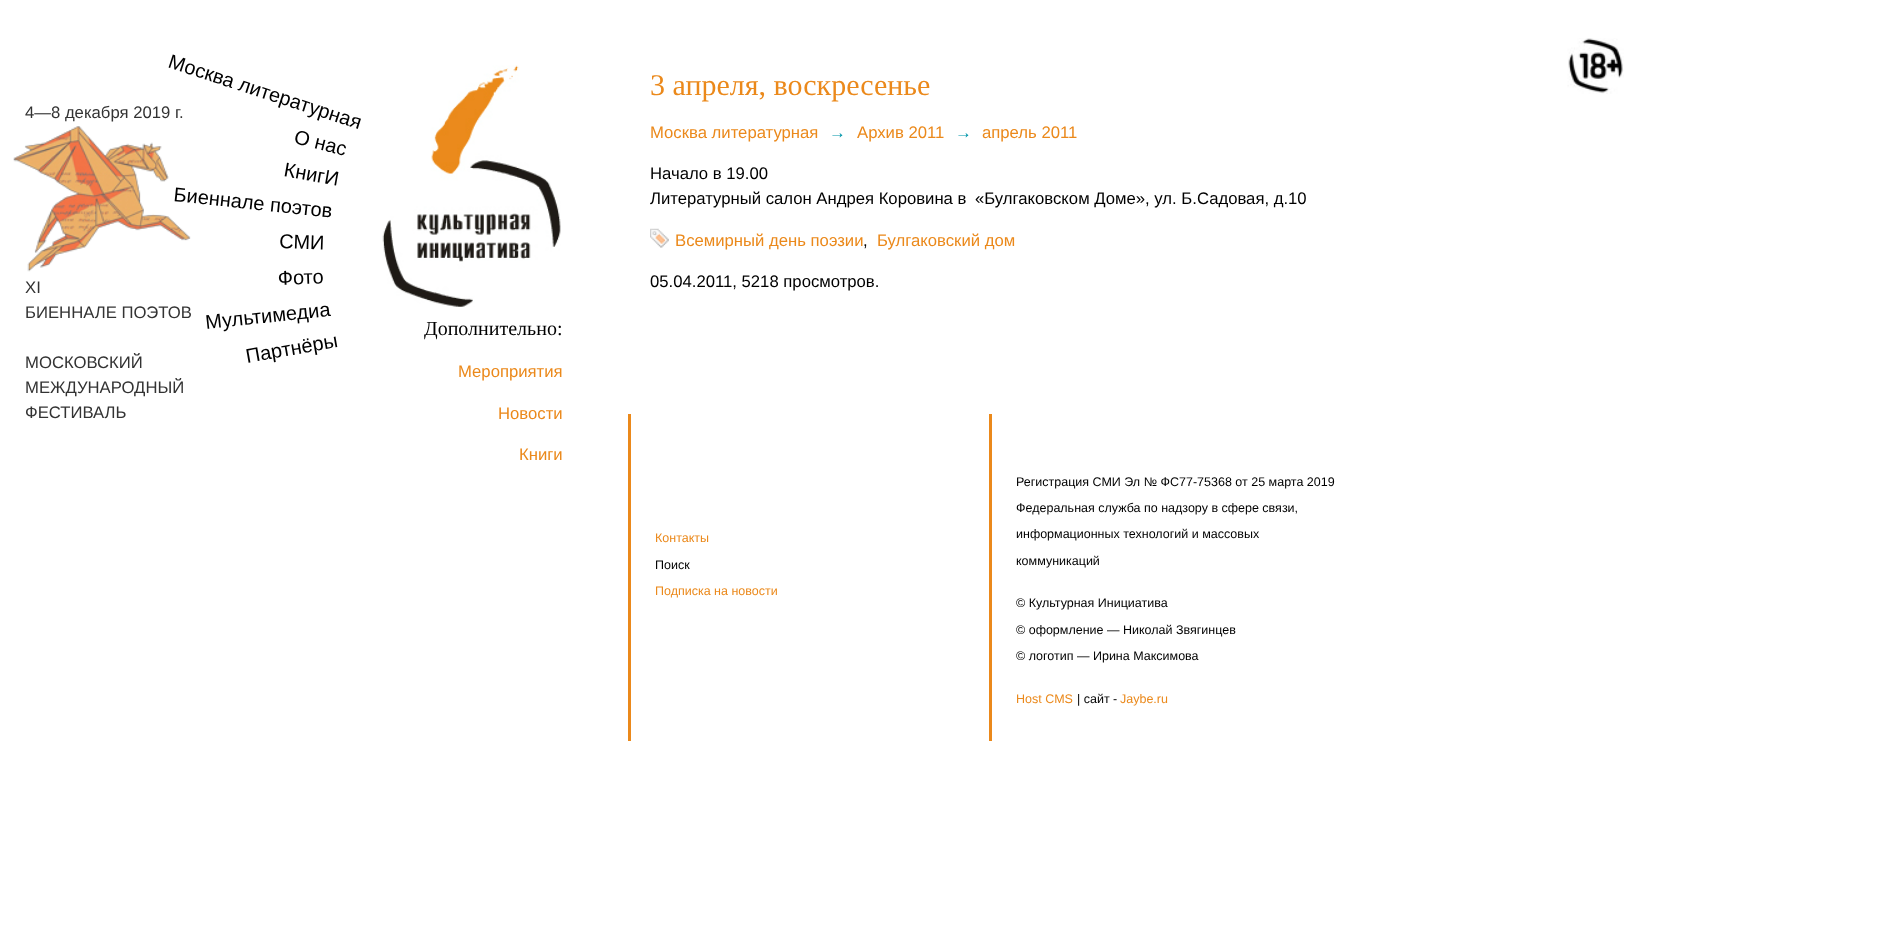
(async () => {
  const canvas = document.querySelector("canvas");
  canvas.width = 1888;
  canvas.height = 930;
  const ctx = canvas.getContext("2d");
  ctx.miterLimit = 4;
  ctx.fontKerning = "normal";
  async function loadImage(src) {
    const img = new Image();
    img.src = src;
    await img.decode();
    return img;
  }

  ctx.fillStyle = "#ffffff";
  ctx.fillRect(0, 0, 1888, 930);
  ctx.drawImage(await loadImage("img/1.png"), 13, 126, 178, 146);
  ctx.drawImage(await loadImage("img/2.png"), 382, 65, 179, 242);
  ctx.drawImage(await loadImage("img/3.png"), 650, 228, 19, 20);
  ctx.fillStyle = "#eb891b";
  ctx.fillRect(628, 414, 3, 327);
  ctx.fillRect(989, 414, 3, 327);
  ctx.drawImage(await loadImage("img/4.png"), 1567, 38, 57, 56);
  ctx.font = "16.7px Liberation Sans";
  ctx.fillStyle = "#333333";
  for (const [text, x, y] of [
    ["4—8 декабря 2019 г.", 25, 118],
    ["XI", 25, 293],
    ["БИЕННАЛЕ ПОЭТОВ", 25, 318],
    ["МОСКОВСКИЙ", 25, 368],
    ["МЕЖДУНАРОДНЫЙ", 25, 393],
    ["ФЕСТИВАЛЬ", 25, 418],
  ]) {
    ctx.fillText(text, x, y);
  }
  ctx.font = "20px Liberation Sans";
  ctx.fillStyle = "#000000";
  ctx.save();
  ctx.translate(167, 67);
  ctx.rotate(18 * Math.PI / 180);
  ctx.fillText("Москва литературная", 0, 0);
  ctx.restore();
  ctx.save();
  ctx.translate(293, 143);
  ctx.rotate(14 * Math.PI / 180);
  ctx.fillText("О нас", 0, 0);
  ctx.restore();
  ctx.save();
  ctx.translate(283, 176);
  ctx.rotate(10 * Math.PI / 180);
  ctx.fillText("КнигИ", 0, 0);
  ctx.restore();
  ctx.save();
  ctx.translate(173, 201);
  ctx.rotate(6 * Math.PI / 180);
  ctx.fillText("Биеннале поэтов", 0, 0);
  ctx.restore();
  ctx.save();
  ctx.translate(279, 248);
  ctx.rotate(2 * Math.PI / 180);
  ctx.fillText("СМИ", 0, 0);
  ctx.restore();
  ctx.save();
  ctx.translate(278, 285);
  ctx.rotate(-2 * Math.PI / 180);
  ctx.fillText("Фото", 0, 0);
  ctx.restore();
  ctx.save();
  ctx.translate(206, 329);
  ctx.rotate(-6 * Math.PI / 180);
  ctx.fillText("Мультимедиа", 0, 0);
  ctx.restore();
  ctx.save();
  ctx.translate(247, 363);
  ctx.rotate(-10 * Math.PI / 180);
  ctx.fillText("Партнёры", 0, 0);
  ctx.restore();
  ctx.font = "30px Liberation Serif";
  ctx.fillStyle = "#eb891b";
  ctx.fillText("3 апреля, воскресенье", 650, 95);
  ctx.font = "16.7px Liberation Sans";
  ctx.fillText("Москва литературная", 650, 138);
  ctx.fillStyle = "#0096aa";
  ctx.fillText("→", 829, 138);
  ctx.fillStyle = "#eb891b";
  ctx.fillText("Архив 2011", 857, 138);
  ctx.fillStyle = "#0096aa";
  ctx.fillText("→", 955, 138);
  ctx.fillStyle = "#eb891b";
  ctx.fillText("апрель 2011", 982, 138);
  ctx.fillStyle = "#000000";
  for (const [text, x, y] of [
    ["Начало в 19.00", 650, 179],
    ["Литературный салон Андрея Коровина в", 650, 204],
    ["«Булгаковском Доме», ул. Б.Садовая, д.10", 975, 204],
  ]) {
    ctx.fillText(text, x, y);
  }
  ctx.fillStyle = "#eb891b";
  ctx.fillText("Всемирный день поэзии", 675, 246);
  ctx.fillStyle = "#000000";
  ctx.fillText(",", 863, 246);
  ctx.fillStyle = "#eb891b";
  ctx.fillText("Булгаковский дом", 877, 246);
  ctx.fillStyle = "#000000";
  ctx.fillText("05.04.2011, 5218 просмотров.", 650, 287);
  ctx.font = "20px Liberation Serif";
  ctx.fillText("Дополнительно:", 424, 335);
  ctx.font = "16.7px Liberation Sans";
  ctx.fillStyle = "#eb891b";
  for (const [text, x, y] of [
    ["Мероприятия", 458, 377],
    ["Новости", 498, 419],
    ["Книги", 519, 460],
  ]) {
    ctx.fillText(text, x, y);
  }
  ctx.font = "12.5px Liberation Sans";
  ctx.fillText("Контакты", 655, 542);
  ctx.fillStyle = "#000000";
  ctx.fillText("Поиск", 655, 569);
  ctx.fillStyle = "#eb891b";
  ctx.fillText("Подписка на новости", 655, 595);
  ctx.fillStyle = "#000000";
  for (const [text, x, y] of [
    ["Регистрация СМИ Эл № ФC77-75368 от 25 марта 2019", 1016, 486],
    ["Федеральная служба по надзору в сфере связи,", 1016, 512],
    ["информационных технологий и массовых", 1016, 538],
    ["коммуникаций", 1016, 565],
    ["© Культурная Инициатива", 1016, 607],
    ["© оформление — Николай Звягинцев", 1016, 634],
    ["© логотип — Ирина Максимова", 1016, 660],
  ]) {
    ctx.fillText(text, x, y);
  }
  ctx.fillStyle = "#eb891b";
  ctx.fillText("Host CMS", 1016, 703);
  ctx.fillStyle = "#000000";
  ctx.fillText("| сайт -", 1077, 703);
  ctx.fillStyle = "#eb891b";
  ctx.fillText("Jaybe.ru", 1120, 703);
})();
